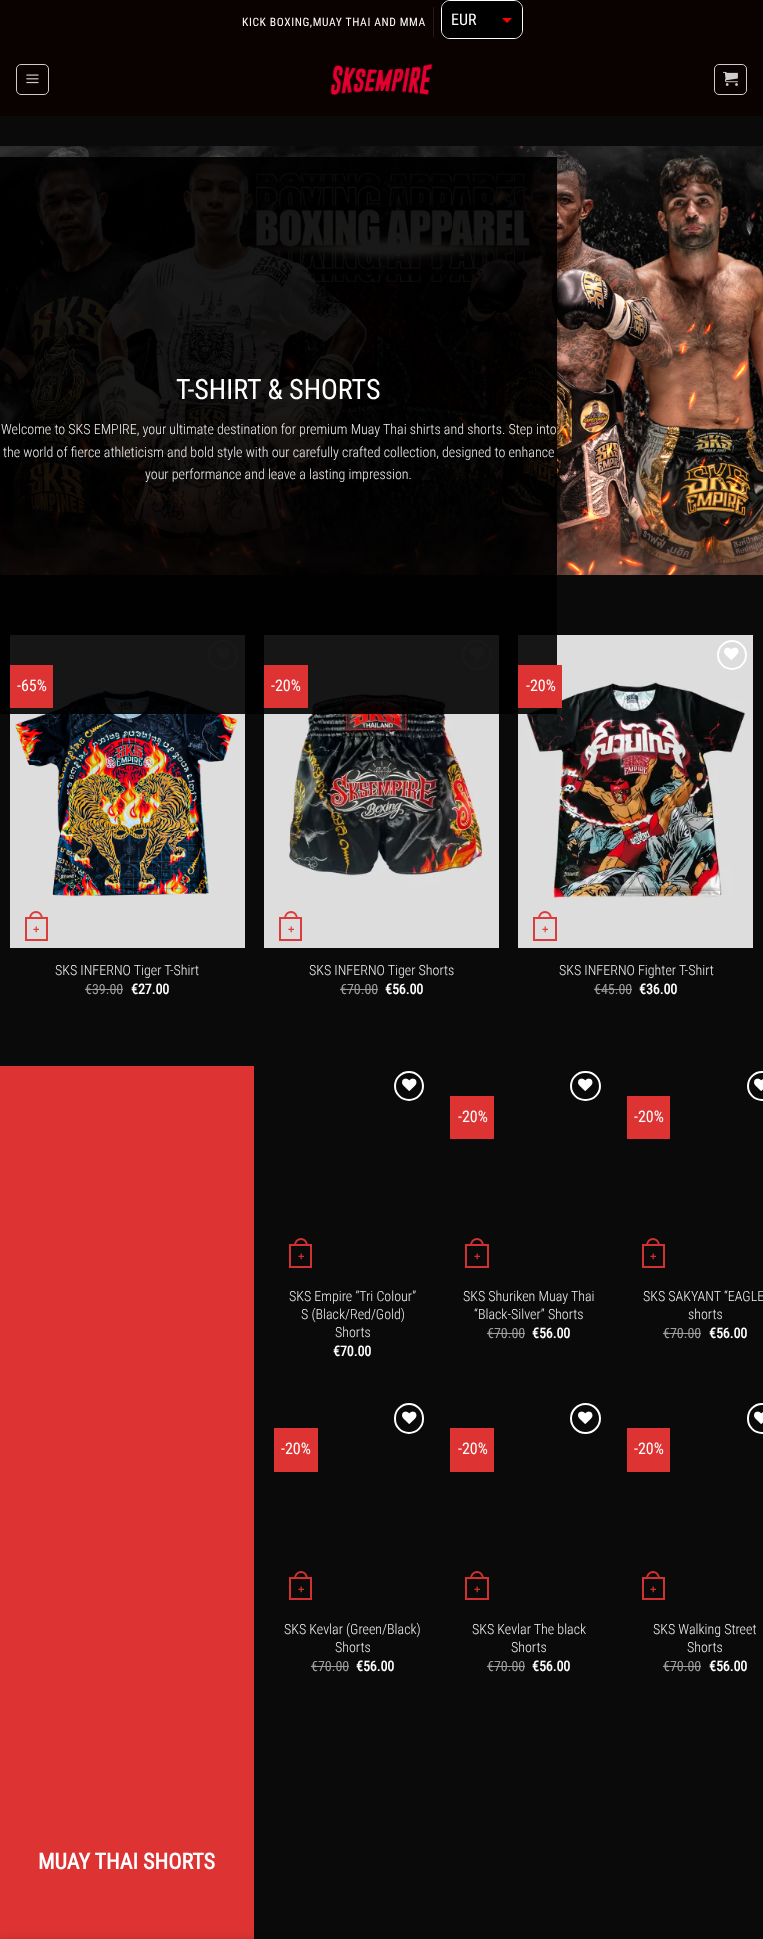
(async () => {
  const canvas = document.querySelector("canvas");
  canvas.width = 763;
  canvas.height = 1939;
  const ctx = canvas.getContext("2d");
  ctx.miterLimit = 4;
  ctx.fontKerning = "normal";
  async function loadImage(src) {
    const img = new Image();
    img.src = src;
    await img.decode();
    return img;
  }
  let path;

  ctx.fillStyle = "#0a0a0a";
  ctx.fillRect(0, 0, 763, 1939);
  ctx.fillStyle = "#0a0101";
  ctx.fillRect(0, 0, 763, 116);
  ctx.fillStyle = "#231a1a";
  ctx.fillRect(433, 7, 1, 30);
  ctx.beginPath();
  ctx.roundRect(441.5, 0.5, 81, 38, 8.5);
  ctx.strokeStyle = "#ffffff";
  ctx.stroke();
  ctx.fillStyle = "#000000";
  ctx.beginPath();
  ctx.roundRect(442, 1, 80, 37, 8);
  ctx.fill();
  ctx.fillStyle = "#ff0000";
  path = new Path2D("M502 18H512L507 23Z");
  ctx.fill(path);
  ctx.beginPath();
  ctx.roundRect(16.5, 64.5, 32, 30, 4.5);
  ctx.strokeStyle = "#cecccc";
  ctx.stroke();
  ctx.drawImage(await loadImage("img/1.png"), 26, 74, 13, 10);
  ctx.drawImage(await loadImage("img/2.png"), 330, 63, 103, 33);
  ctx.beginPath();
  ctx.roundRect(714.5, 64.5, 32, 30, 4.5);
  ctx.stroke();
  ctx.drawImage(await loadImage("img/3.png"), 723, 71, 15, 15);
  ctx.drawImage(await loadImage("img/4.png"), 0, 146, 763, 429);
  ctx.drawImage(await loadImage("img/5.png"), 10, 635, 235, 313);
  ctx.beginPath();
  ctx.arc(223, 655, 14, 0, Math.PI * 2);
  ctx.strokeStyle = "#ffffff";
  ctx.lineWidth = 2;
  ctx.stroke();
  ctx.drawImage(await loadImage("img/6.png"), 216, 647, 15, 13);
  ctx.drawImage(await loadImage("img/7.png"), 264, 635, 235, 313);
  ctx.beginPath();
  ctx.arc(477, 655, 14, 0, Math.PI * 2);
  ctx.stroke();
  ctx.drawImage(await loadImage("img/6.png"), 470, 647, 15, 13);
  ctx.drawImage(await loadImage("img/8.png"), 518, 635, 235, 313);
  ctx.fillStyle = "rgba(0, 0, 0, 0.9)";
  ctx.fillRect(0, 157, 557, 557);
  ctx.fillStyle = "#dd3333";
  ctx.fillRect(10, 665, 43, 43);
  ctx.strokeStyle = "#dd3c3c";
  ctx.strokeRect(26, 918, 21, 22);
  ctx.fillStyle = "#dd3c3c";
  path = new Path2D("M36 911C40.5 911 43 915 43 919H29C29 915 31.5 911 36 911ZM36 913C39.5 913 41 916 41 919H31C31 916 32.5 913 36 913Z");
  ctx.fill(path, "evenodd");
  ctx.fillStyle = "#9d9d9d";
  ctx.fillRect(85, 989, 38, 1);
  ctx.fillStyle = "#dd3333";
  ctx.fillRect(264, 665, 44, 43);
  ctx.strokeRect(280, 918, 21, 22);
  ctx.fillStyle = "#dd3c3c";
  path = new Path2D("M291 911C295.5 911 298 915 298 919H284C284 915 286.5 911 291 911ZM291 913C294.5 913 296 916 296 919H286C286 916 287.5 913 291 913Z");
  ctx.fill(path, "evenodd");
  ctx.fillStyle = "#9d9d9d";
  ctx.fillRect(340, 989, 38, 1);
  ctx.fillStyle = "#dd3333";
  ctx.fillRect(518, 665, 44, 43);
  ctx.beginPath();
  ctx.arc(732, 655, 14, 0, Math.PI * 2);
  ctx.strokeStyle = "#ffffff";
  ctx.stroke();
  ctx.drawImage(await loadImage("img/6.png"), 724, 647, 15, 13);
  ctx.strokeStyle = "#dd3c3c";
  ctx.strokeRect(534, 918, 22, 22);
  ctx.fillStyle = "#dd3c3c";
  path = new Path2D("M545 911C549.5 911 552 915 552 919H538C538 915 540.5 911 545 911ZM545 913C548.5 913 550 916 550 919H540C540 916 541.5 913 545 913Z");
  ctx.fill(path, "evenodd");
  ctx.fillStyle = "#9d9d9d";
  ctx.fillRect(594, 989, 38, 1);
  ctx.beginPath();
  ctx.arc(409, 1086, 14, 0, Math.PI * 2);
  ctx.strokeStyle = "#ffffff";
  ctx.stroke();
  ctx.drawImage(await loadImage("img/9.png"), 402, 1078, 15, 13);
  ctx.strokeStyle = "#d23131";
  ctx.strokeRect(290, 1245, 21, 22);
  ctx.fillStyle = "#d23131";
  path = new Path2D("M301 1238C305.5 1238 308 1242 308 1246H294C294 1242 296.5 1238 301 1238ZM301 1240C304.5 1240 306 1243 306 1246H296C296 1243 297.5 1240 301 1240Z");
  ctx.fill(path, "evenodd");
  ctx.fillStyle = "#dd3333";
  ctx.fillRect(450, 1096, 44, 43);
  ctx.beginPath();
  ctx.roundRect(571, 1072, 29, 28, 14);
  ctx.strokeStyle = "#ffffff";
  ctx.stroke();
  ctx.drawImage(await loadImage("img/9.png"), 578, 1078, 15, 13);
  ctx.strokeStyle = "#d23131";
  ctx.strokeRect(466, 1245, 22, 22);
  ctx.fillStyle = "#d23131";
  path = new Path2D("M477 1238C481.5 1238 484 1242 484 1246H470C470 1242 472.5 1238 477 1238ZM477 1240C480.5 1240 482 1243 482 1246H472C472 1243 473.5 1240 477 1240Z");
  ctx.fill(path, "evenodd");
  ctx.fillStyle = "#9d9d9d";
  ctx.fillRect(487, 1333, 38, 1);
  ctx.fillStyle = "#dd3333";
  ctx.fillRect(627, 1096, 43, 43);
  ctx.beginPath();
  ctx.arc(762, 1086, 14, 0, Math.PI * 2);
  ctx.strokeStyle = "#ffffff";
  ctx.stroke();
  ctx.drawImage(await loadImage("img/10.png"), 754, 1078, 9, 13);
  ctx.strokeStyle = "#d23131";
  ctx.strokeRect(643, 1245, 21, 22);
  ctx.fillStyle = "#d23131";
  path = new Path2D("M653 1238C657.5 1238 660 1242 660 1246H646C646 1242 648.5 1238 653 1238ZM653 1240C656.5 1240 658 1243 658 1246H648C648 1243 649.5 1240 653 1240Z");
  ctx.fill(path, "evenodd");
  ctx.fillStyle = "#9d9d9d";
  ctx.fillRect(663, 1333, 38, 1);
  ctx.fillStyle = "#dd3333";
  ctx.fillRect(274, 1428, 44, 44);
  ctx.beginPath();
  ctx.roundRect(395, 1404, 28, 29, 14);
  ctx.strokeStyle = "#ffffff";
  ctx.stroke();
  ctx.drawImage(await loadImage("img/9.png"), 402, 1411, 15, 13);
  ctx.strokeStyle = "#d23131";
  ctx.strokeRect(290, 1578, 21, 21);
  ctx.fillStyle = "#d23131";
  path = new Path2D("M301 1571C305.5 1571 308 1575 308 1579H294C294 1575 296.5 1571 301 1571ZM301 1573C304.5 1573 306 1576 306 1579H296C296 1576 297.5 1573 301 1573Z");
  ctx.fill(path, "evenodd");
  ctx.fillStyle = "#9d9d9d";
  ctx.fillRect(311, 1666, 38, 1);
  ctx.fillStyle = "#dd3333";
  ctx.fillRect(450, 1428, 44, 44);
  ctx.beginPath();
  ctx.arc(585.5, 1418.5, 14.5, 0, Math.PI * 2);
  ctx.strokeStyle = "#ffffff";
  ctx.stroke();
  ctx.drawImage(await loadImage("img/9.png"), 578, 1411, 15, 13);
  ctx.strokeStyle = "#d23131";
  ctx.strokeRect(466, 1578, 22, 21);
  ctx.fillStyle = "#d23131";
  path = new Path2D("M477 1571C481.5 1571 484 1575 484 1579H470C470 1575 472.5 1571 477 1571ZM477 1573C480.5 1573 482 1576 482 1579H472C472 1576 473.5 1573 477 1573Z");
  ctx.fill(path, "evenodd");
  ctx.fillStyle = "#9d9d9d";
  ctx.fillRect(487, 1666, 38, 1);
  ctx.fillStyle = "#dd3333";
  ctx.fillRect(627, 1428, 43, 44);
  ctx.beginPath();
  ctx.roundRect(748, 1404, 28, 29, 14);
  ctx.strokeStyle = "#ffffff";
  ctx.stroke();
  ctx.drawImage(await loadImage("img/10.png"), 754, 1411, 9, 13);
  ctx.strokeStyle = "#d23131";
  ctx.strokeRect(643, 1578, 21, 21);
  ctx.fillStyle = "#d23131";
  path = new Path2D("M653 1571C657.5 1571 660 1575 660 1579H646C646 1575 648.5 1571 653 1571ZM653 1573C656.5 1573 658 1576 658 1579H648C648 1576 649.5 1573 653 1573Z");
  ctx.fill(path, "evenodd");
  ctx.fillStyle = "#9d9d9d";
  ctx.fillRect(663, 1666, 38, 1);
  ctx.fillStyle = "#dd3333";
  ctx.fillRect(0, 1066, 254, 873);
  ctx.fillStyle = "rgba(0, 0, 0, 0.14)";
  ctx.filter = "blur(4.5px)";
  ctx.beginPath();
  ctx.rect(0, 1939, 763, 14);
  ctx.fill();
  ctx.filter = "none";
  ctx.letterSpacing = "0.6px";
  ctx.font = "11.6px Roboto Condensed";
  ctx.fillStyle = "#ffffff";
  ctx.fillText("KICK BOXING,MUAY THAI AND MMA", 242, 26);
  ctx.letterSpacing = "0px";
  ctx.font = "16px Roboto Condensed";
  ctx.fillText("EUR", 451, 25);
  ctx.font = "28px Roboto Condensed";
  ctx.fillText("T-SHIRT & SHORTS", 176, 399);
  ctx.font = "300 14px Roboto Condensed";
  ctx.fillStyle = "#f1f1f1";
  for (const [text, x, y] of [
    ["Welcome to SKS EMPIRE, your ultimate destination for premium Muay Thai shirts and shorts. Step into", 1, 434],
    ["the world of fierce athleticism and bold style with our carefully crafted collection, designed to enhance", 3, 457],
    ["your performance and leave a lasting impression.", 145, 479],
  ]) {
    ctx.fillText(text, x, y);
  }
  ctx.font = "16px Roboto Condensed";
  ctx.fillStyle = "#ffffff";
  ctx.fillText("-65%", 17, 691);
  ctx.font = "bold 11px Liberation Sans";
  ctx.fillStyle = "#dd3c3c";
  ctx.fillText("+", 33, 933);
  ctx.font = "300 14px Roboto Condensed";
  ctx.fillStyle = "#f1f1f1";
  ctx.fillText("SKS INFERNO Tiger T-Shirt", 55, 975);
  ctx.font = "14px Roboto Condensed";
  ctx.fillStyle = "#9d9d9d";
  ctx.fillText("€39.00", 85, 994);
  ctx.font = "bold 14px Roboto Condensed";
  ctx.fillStyle = "#ffffff";
  ctx.fillText("€27.00", 131, 994);
  ctx.font = "16px Roboto Condensed";
  ctx.fillText("-20%", 271, 691);
  ctx.font = "bold 11px Liberation Sans";
  ctx.fillStyle = "#dd3c3c";
  ctx.fillText("+", 288, 933);
  ctx.font = "300 14px Roboto Condensed";
  ctx.fillStyle = "#f1f1f1";
  ctx.fillText("SKS INFERNO Tiger Shorts", 309, 975);
  ctx.font = "14px Roboto Condensed";
  ctx.fillStyle = "#9d9d9d";
  ctx.fillText("€70.00", 340, 994);
  ctx.font = "bold 14px Roboto Condensed";
  ctx.fillStyle = "#ffffff";
  ctx.fillText("€56.00", 385, 994);
  ctx.font = "16px Roboto Condensed";
  ctx.fillText("-20%", 526, 691);
  ctx.font = "bold 11px Liberation Sans";
  ctx.fillStyle = "#dd3c3c";
  ctx.fillText("+", 542, 933);
  ctx.font = "300 14px Roboto Condensed";
  ctx.fillStyle = "#f1f1f1";
  ctx.fillText("SKS INFERNO Fighter T-Shirt", 559, 975);
  ctx.font = "14px Roboto Condensed";
  ctx.fillStyle = "#9d9d9d";
  ctx.fillText("€45.00", 594, 994);
  ctx.font = "bold 14px Roboto Condensed";
  ctx.fillStyle = "#ffffff";
  ctx.fillText("€36.00", 639, 994);
  ctx.font = "bold 11px Liberation Sans";
  ctx.fillStyle = "#d23131";
  ctx.fillText("+", 298, 1260);
  ctx.font = "300 14px Roboto Condensed";
  ctx.fillStyle = "#f1f1f1";
  for (const [text, x, y] of [
    ["SKS Empire “Tri Colour”", 289, 1301],
    ["S (Black/Red/Gold)", 301, 1319],
    ["Shorts", 335, 1337],
  ]) {
    ctx.fillText(text, x, y);
  }
  ctx.font = "bold 14px Roboto Condensed";
  ctx.fillStyle = "#ffffff";
  ctx.fillText("€70.00", 333, 1356);
  ctx.font = "16px Roboto Condensed";
  ctx.fillText("-20%", 458, 1122);
  ctx.font = "bold 11px Liberation Sans";
  ctx.fillStyle = "#d23131";
  ctx.fillText("+", 474, 1260);
  ctx.font = "300 14px Roboto Condensed";
  ctx.fillStyle = "#f1f1f1";
  ctx.fillText("SKS Shuriken Muay Thai", 463, 1301);
  ctx.fillText("“Black-Silver” Shorts", 474, 1319);
  ctx.font = "14px Roboto Condensed";
  ctx.fillStyle = "#9d9d9d";
  ctx.fillText("€70.00", 487, 1338);
  ctx.font = "bold 14px Roboto Condensed";
  ctx.fillStyle = "#ffffff";
  ctx.fillText("€56.00", 532, 1338);
  ctx.font = "16px Roboto Condensed";
  ctx.fillText("-20%", 634, 1122);
  ctx.font = "bold 11px Liberation Sans";
  ctx.fillStyle = "#d23131";
  ctx.fillText("+", 650, 1260);
  ctx.font = "300 14px Roboto Condensed";
  ctx.fillStyle = "#f1f1f1";
  ctx.fillText("SKS SAKYANT “EAGLE", 643, 1301);
  ctx.fillText("shorts", 688, 1319);
  ctx.font = "14px Roboto Condensed";
  ctx.fillStyle = "#9d9d9d";
  ctx.fillText("€70.00", 663, 1338);
  ctx.font = "bold 14px Roboto Condensed";
  ctx.fillStyle = "#ffffff";
  ctx.fillText("€56.00", 709, 1338);
  ctx.font = "16px Roboto Condensed";
  ctx.fillText("-20%", 281, 1454);
  ctx.font = "bold 11px Liberation Sans";
  ctx.fillStyle = "#d23131";
  ctx.fillText("+", 298, 1593);
  ctx.font = "300 14px Roboto Condensed";
  ctx.fillStyle = "#f1f1f1";
  ctx.fillText("SKS Kevlar (Green/Black)", 284, 1634);
  ctx.fillText("Shorts", 335, 1652);
  ctx.font = "14px Roboto Condensed";
  ctx.fillStyle = "#9d9d9d";
  ctx.fillText("€70.00", 311, 1671);
  ctx.font = "bold 14px Roboto Condensed";
  ctx.fillStyle = "#ffffff";
  ctx.fillText("€56.00", 356, 1671);
  ctx.font = "16px Roboto Condensed";
  ctx.fillText("-20%", 458, 1454);
  ctx.font = "bold 11px Liberation Sans";
  ctx.fillStyle = "#d23131";
  ctx.fillText("+", 474, 1593);
  ctx.font = "300 14px Roboto Condensed";
  ctx.fillStyle = "#f1f1f1";
  ctx.fillText("SKS Kevlar The black", 472, 1634);
  ctx.fillText("Shorts", 511, 1652);
  ctx.font = "14px Roboto Condensed";
  ctx.fillStyle = "#9d9d9d";
  ctx.fillText("€70.00", 487, 1671);
  ctx.font = "bold 14px Roboto Condensed";
  ctx.fillStyle = "#ffffff";
  ctx.fillText("€56.00", 532, 1671);
  ctx.font = "16px Roboto Condensed";
  ctx.fillText("-20%", 634, 1454);
  ctx.font = "bold 11px Liberation Sans";
  ctx.fillStyle = "#d23131";
  ctx.fillText("+", 650, 1593);
  ctx.font = "300 14px Roboto Condensed";
  ctx.fillStyle = "#f1f1f1";
  ctx.fillText("SKS Walking Street", 653, 1634);
  ctx.fillText("Shorts", 687, 1652);
  ctx.font = "14px Roboto Condensed";
  ctx.fillStyle = "#9d9d9d";
  ctx.fillText("€70.00", 663, 1671);
  ctx.font = "bold 14px Roboto Condensed";
  ctx.fillStyle = "#ffffff";
  ctx.fillText("€56.00", 709, 1671);
  ctx.font = "bold 22px Roboto Condensed";
  ctx.fillText("MUAY THAI SHORTS", 38, 1869);
})();
